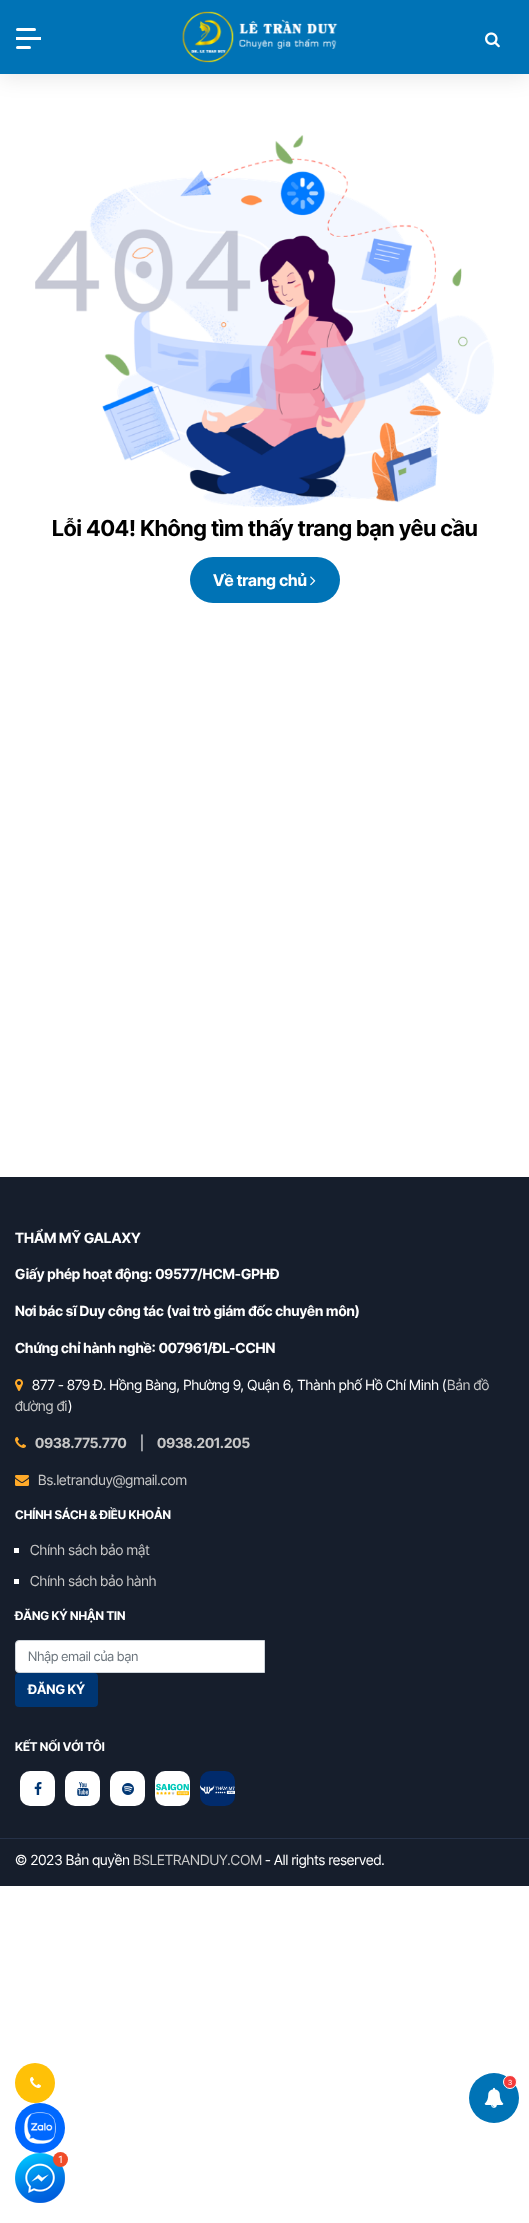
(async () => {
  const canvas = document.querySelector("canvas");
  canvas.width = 529;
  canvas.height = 2223;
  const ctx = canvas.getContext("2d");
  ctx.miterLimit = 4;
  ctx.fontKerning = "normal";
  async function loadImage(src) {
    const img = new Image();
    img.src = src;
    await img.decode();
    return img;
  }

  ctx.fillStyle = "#ffffff";
  ctx.fillRect(0, 0, 529, 2223);
  ctx.drawImage(await loadImage("img/1.png"), 35, 135, 459, 372);
  ctx.fillStyle = "#0073b6";
  ctx.beginPath();
  ctx.roundRect(190, 557, 150, 46, 23);
  ctx.fill();
  ctx.drawImage(await loadImage("img/2.png"), 310, 576, 6, 10);
  ctx.fillStyle = "#161e2c";
  ctx.fillRect(0, 1177, 529, 709);
  ctx.drawImage(await loadImage("img/3.png"), 15, 1379, 8, 12);
  ctx.drawImage(await loadImage("img/4.png"), 15, 1437, 11, 11);
  ctx.drawImage(await loadImage("img/5.png"), 15, 1475, 14, 11);
  ctx.fillStyle = "#ffffff";
  ctx.fillRect(14, 1548, 5, 5);
  ctx.fillRect(14, 1579, 5, 5);
  ctx.beginPath();
  ctx.roundRect(15.5, 1640.5, 249, 32, [3.5, 0, 0, 3.5]);
  ctx.fill();
  ctx.strokeStyle = "#ced4da";
  ctx.stroke();
  ctx.fillStyle = "#003673";
  ctx.beginPath();
  ctx.roundRect(15, 1673, 83, 34, 4);
  ctx.fill();
  ctx.fillStyle = "#ffffff";
  ctx.beginPath();
  ctx.roundRect(20, 1771, 35, 35, 10);
  ctx.fill();
  ctx.drawImage(await loadImage("img/6.png"), 34, 1782, 8, 13);
  ctx.beginPath();
  ctx.roundRect(65, 1771, 35, 35, 10);
  ctx.fill();
  ctx.drawImage(await loadImage("img/7.png"), 77, 1782, 12, 14);
  ctx.beginPath();
  ctx.roundRect(110, 1771, 35, 35, 10);
  ctx.fill();
  ctx.drawImage(await loadImage("img/8.png"), 122, 1783, 12, 12);
  ctx.beginPath();
  ctx.roundRect(155, 1771, 35, 35, 10);
  ctx.fill();
  ctx.drawImage(await loadImage("img/9.png"), 156, 1783, 33, 13);
  ctx.fillStyle = "#012b6c";
  ctx.beginPath();
  ctx.roundRect(200, 1771, 35, 35, 10);
  ctx.fill();
  ctx.drawImage(await loadImage("img/10.png"), 200, 1785, 35, 9);
  ctx.fillStyle = "#253148";
  ctx.fillRect(0, 1838, 529, 1);
  ctx.fillStyle = "#ffc107";
  ctx.beginPath();
  ctx.arc(35, 2083, 20, 0, Math.PI * 2);
  ctx.fill();
  ctx.drawImage(await loadImage("img/11.png"), 30, 2077, 11, 11);
  ctx.fillStyle = "rgba(0, 0, 0, 0.09)";
  ctx.filter = "blur(10.5px)";
  ctx.beginPath();
  ctx.rect(0, 4, 529, 74);
  ctx.fill();
  ctx.filter = "none";
  ctx.fillStyle = "#0073b6";
  ctx.fillRect(0, 0, 529, 74);
  ctx.fillStyle = "#ffffff";
  ctx.fillRect(16, 37, 25, 3);
  ctx.beginPath();
  ctx.roundRect(16, 28, 20, 3, 1.5);
  ctx.fill();
  ctx.beginPath();
  ctx.roundRect(16, 46, 15, 3, 1.5);
  ctx.fill();
  ctx.drawImage(await loadImage("img/12.png"), 182, 11, 156, 52);
  ctx.drawImage(await loadImage("img/13.png"), 485, 32, 15, 16);
  ctx.fillStyle = "#0073b6";
  ctx.beginPath();
  ctx.arc(494, 2098, 25, 0, Math.PI * 2);
  ctx.fill();
  ctx.drawImage(await loadImage("img/14.png"), 484, 2087, 20, 21);
  ctx.fillStyle = "#f33a3a";
  ctx.beginPath();
  ctx.arc(510, 2082, 6.5, 0, Math.PI * 2);
  ctx.fill();
  ctx.strokeStyle = "#ffffff";
  ctx.stroke();
  ctx.drawImage(await loadImage("img/15.png"), 15, 2103, 50, 50);
  ctx.drawImage(await loadImage("img/16.png"), 15, 2153, 50, 50);
  ctx.fillStyle = "#f04c28";
  ctx.beginPath();
  ctx.arc(60.5, 2159.5, 7.5, 0, Math.PI * 2);
  ctx.fill();
  ctx.font = "bold 22px Inter Tight";
  ctx.fillStyle = "#000000";
  ctx.fillText("Lỗi 404! Không tìm thấy trang bạn yêu cầu", 52, 536);
  ctx.font = "bold 16px Inter Tight";
  ctx.fillStyle = "#ffffff";
  ctx.fillText("Về trang chủ", 213, 586);
  ctx.font = "bold 14px Inter Tight";
  for (const [text, x, y] of [
    ["THẨM MỸ GALAXY", 15, 1243],
    ["Giấy phép hoạt động: 09577/HCM-GPHĐ", 15, 1279],
    ["Nơi bác sĩ Duy công tác (vai trò giám đốc chuyên môn)", 15, 1316],
    ["Chứng chỉ hành nghề: 007961/ĐL-CCHN", 15, 1353],
  ]) {
    ctx.fillText(text, x, y);
  }
  ctx.font = "14px Inter Tight";
  ctx.fillText("877 - 879 Đ. Hồng Bàng, Phường 9, Quận 6, Thành phố Hồ Chí Minh (", 32, 1390);
  ctx.fillStyle = "#c7c7c7";
  ctx.fillText("Bản đồ", 447, 1390);
  ctx.fillText("đường đi", 15, 1411);
  ctx.fillStyle = "#ffffff";
  ctx.fillText(")", 68, 1411);
  ctx.font = "bold 14px Inter Tight";
  ctx.fillStyle = "#c7c7c7";
  ctx.fillText("0938.775.770", 35, 1448);
  ctx.font = "14px Inter Tight";
  ctx.fillStyle = "#ffffff";
  ctx.fillText("|", 140, 1448);
  ctx.font = "bold 14px Inter Tight";
  ctx.fillStyle = "#c7c7c7";
  ctx.fillText("0938.201.205", 157, 1448);
  ctx.font = "14px Inter Tight";
  ctx.fillText("Bs.letranduy@gmail.com", 38, 1485);
  ctx.font = "bold 12px Inter Tight";
  ctx.fillStyle = "#ffffff";
  ctx.fillText("CHÍNH SÁCH & ĐIỀU KHOẢN", 15, 1519);
  ctx.font = "14px Inter Tight";
  ctx.fillStyle = "#c7c7c7";
  ctx.fillText("Chính sách bảo mật", 30, 1555);
  ctx.fillText("Chính sách bảo hành", 30, 1586);
  ctx.font = "bold 12px Inter Tight";
  ctx.fillStyle = "#ffffff";
  ctx.fillText("ĐĂNG KÝ NHẬN TIN", 15, 1620);
  ctx.font = "13px Inter Tight";
  ctx.fillStyle = "#6c757d";
  ctx.fillText("Nhập email của bạn", 28, 1661);
  ctx.font = "bold 13px Inter Tight";
  ctx.fillStyle = "#ffffff";
  ctx.fillText("ĐĂNG KÝ", 28, 1694);
  ctx.font = "bold 12px Inter Tight";
  ctx.fillText("KẾT NỐI VỚI TÔI", 15, 1751);
  ctx.font = "14px Inter Tight";
  ctx.fillText("© 2023 Bản quyền", 15, 1865);
  ctx.fillStyle = "#c7c7c7";
  ctx.fillText("BSLETRANDUY.COM", 133, 1865);
  ctx.fillStyle = "#ffffff";
  ctx.fillText("- All rights reserved.", 265, 1865);
  ctx.font = "7px Inter Tight";
  ctx.fillText("3", 508, 2085);
  ctx.font = "10px Roboto";
  ctx.fillText("1", 58, 2163);
})();
